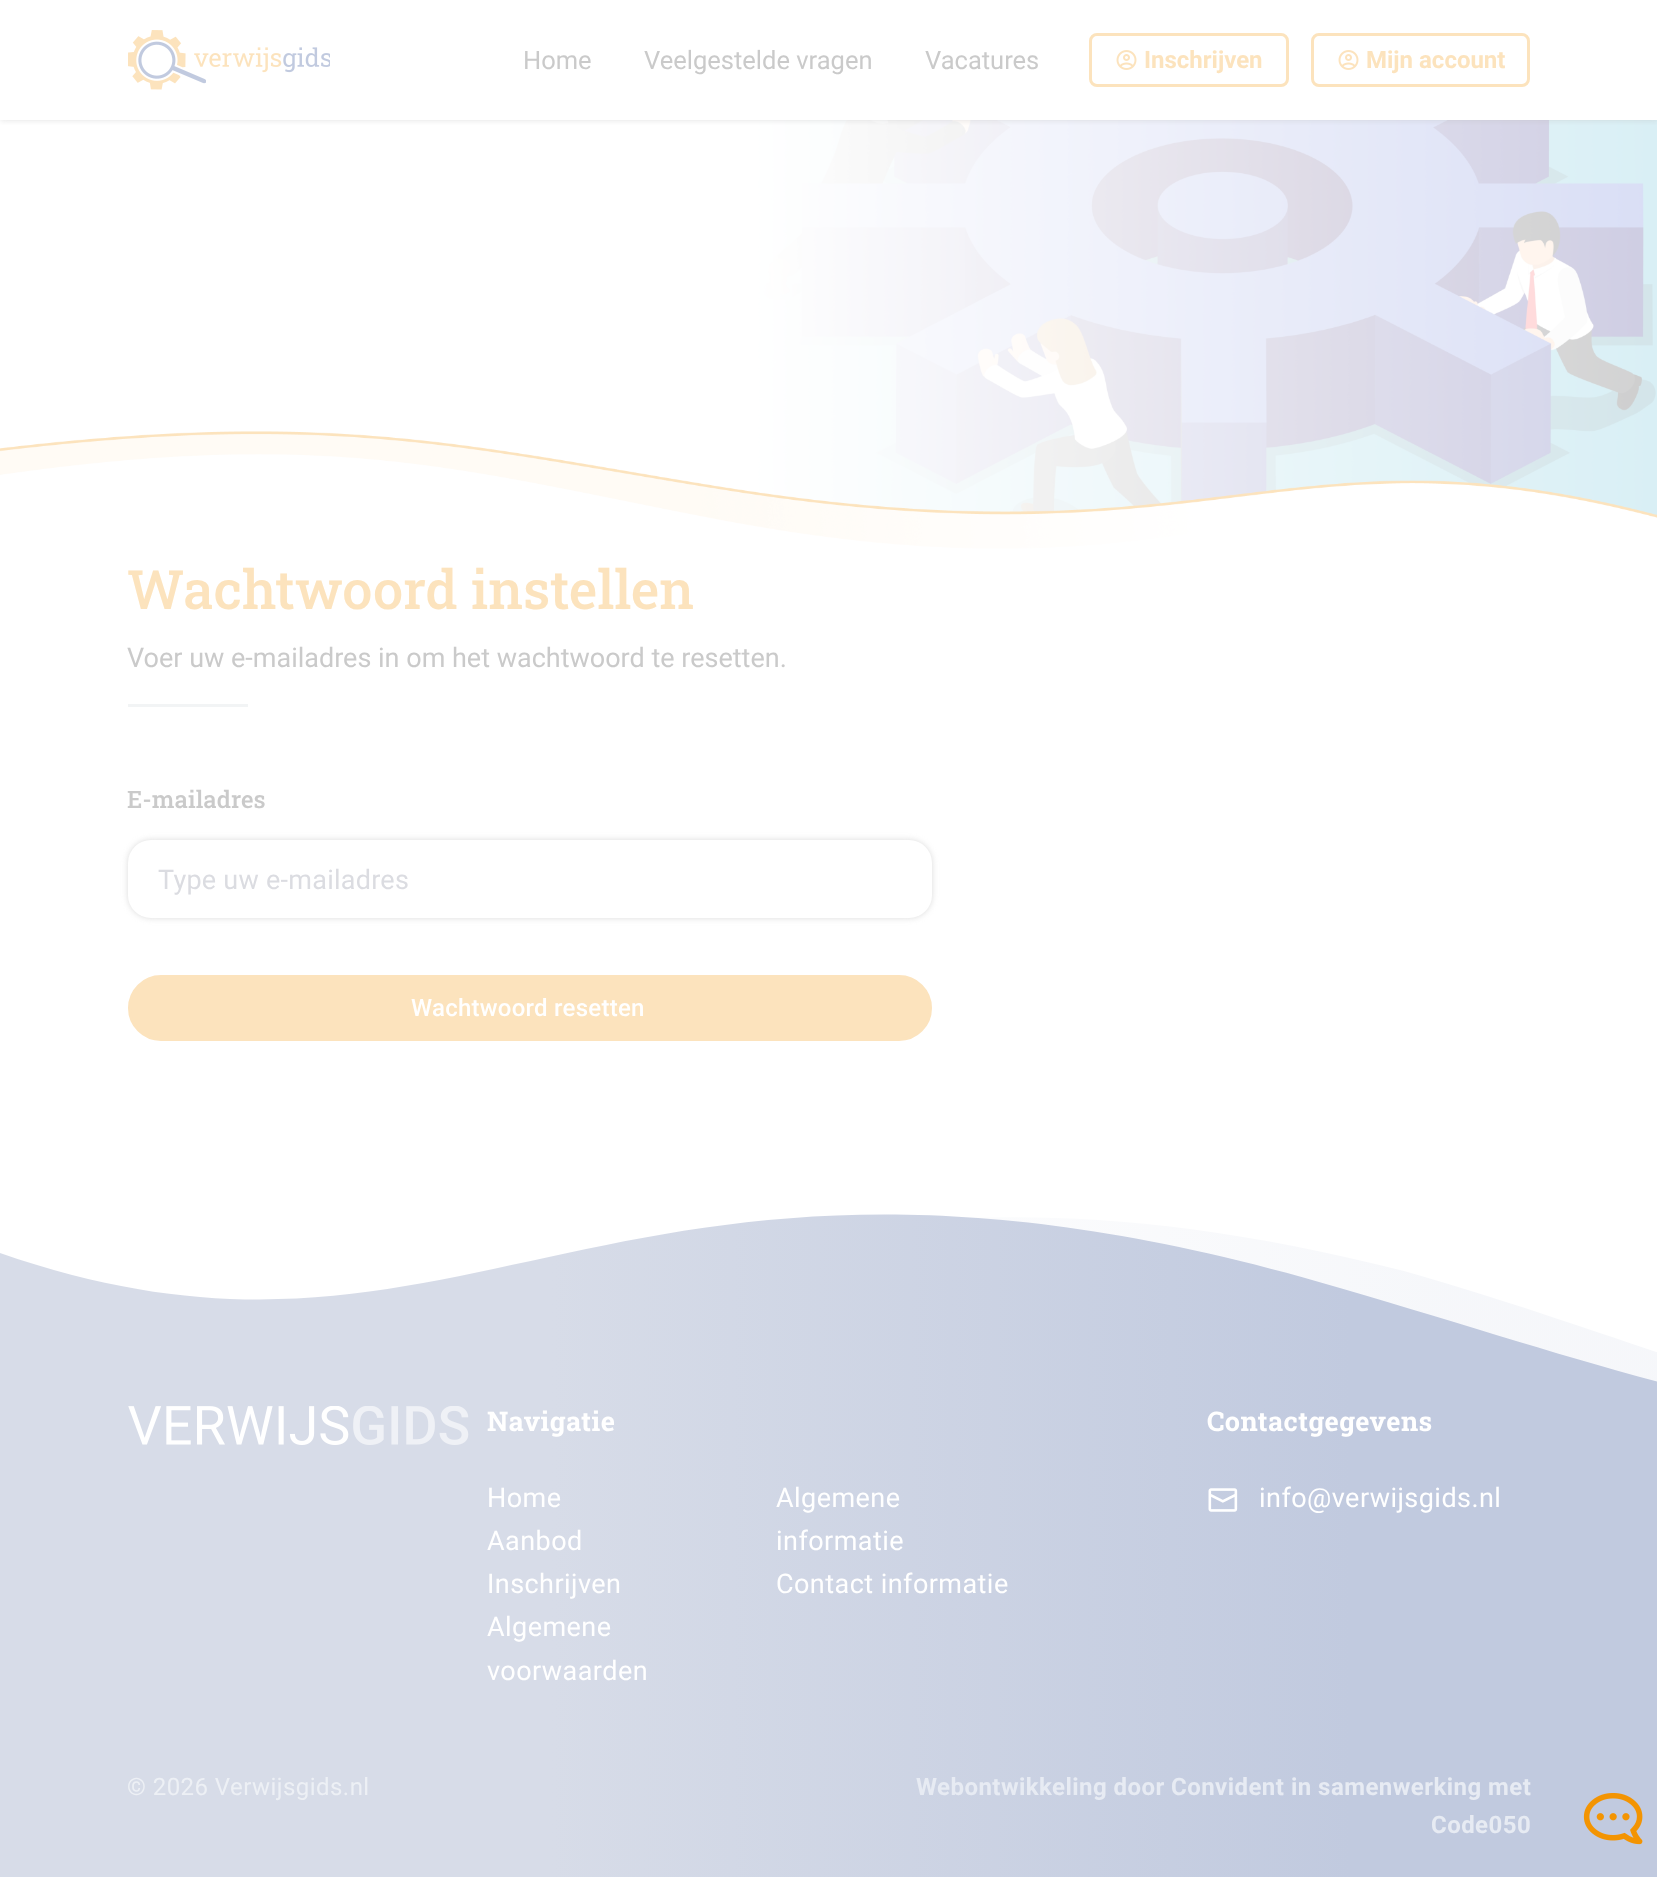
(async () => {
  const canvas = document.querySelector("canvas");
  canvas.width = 1657;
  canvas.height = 1877;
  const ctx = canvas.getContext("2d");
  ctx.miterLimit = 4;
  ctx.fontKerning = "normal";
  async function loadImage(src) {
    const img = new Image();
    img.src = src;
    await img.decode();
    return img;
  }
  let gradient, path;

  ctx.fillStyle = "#ffffff";
  ctx.fillRect(0, 0, 1657, 1877);
  ctx.drawImage(await loadImage("img/3.png"), 0, 120, 1657, 429);
  ctx.save();
  ctx.beginPath();
  ctx.rect(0, 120, 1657, 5);
  ctx.clip();
  ctx.fillStyle = "rgba(189, 189, 189, 0.45)";
  ctx.filter = "blur(3px)";
  ctx.beginPath();
  ctx.rect(0, 0, 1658, 120);
  ctx.fill();
  ctx.filter = "none";
  ctx.restore();
  ctx.drawImage(await loadImage("img/1.png"), 128, 30, 202, 60);
  ctx.beginPath();
  ctx.roundRect(1090.5, 34.5, 197, 51, 6.5);
  ctx.strokeStyle = "#fce3bd";
  ctx.lineWidth = 3;
  ctx.stroke();
  ctx.drawImage(await loadImage("img/2.png"), 1116, 50, 21, 20);
  ctx.beginPath();
  ctx.roundRect(1312.5, 34.5, 216, 51, 6.5);
  ctx.stroke();
  ctx.drawImage(await loadImage("img/2.png"), 1338, 50, 21, 20);
  ctx.fillStyle = "#f2f4f5";
  ctx.fillRect(128, 704, 120, 3);
  ctx.fillStyle = "rgba(189, 189, 189, 0.55)";
  ctx.filter = "blur(3px)";
  ctx.beginPath();
  ctx.roundRect(128, 840, 804, 78, 23);
  ctx.fill();
  ctx.filter = "none";
  ctx.fillStyle = "#ffffff";
  ctx.beginPath();
  ctx.roundRect(129, 841, 802, 76, 22);
  ctx.fill();
  ctx.strokeStyle = "#ffffff";
  ctx.lineWidth = 2;
  ctx.stroke();
  ctx.fillStyle = "#fce3bd";
  ctx.beginPath();
  ctx.roundRect(129.5, 976.5, 801, 63, 31.5);
  ctx.fill();
  ctx.strokeStyle = "#fce3bd";
  ctx.lineWidth = 3;
  ctx.stroke();
  gradient = ctx.createLinearGradient(1447, 1205, 648, 1205);
  gradient.addColorStop(0, "rgba(193, 202, 223, 0.15)");
  gradient.addColorStop(1, "rgba(193, 202, 223, 0)");
  ctx.fillStyle = gradient;
  path = new Path2D("M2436 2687L-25 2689V1205C553 1480 661 1080 1404 1271C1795 1383 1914 1499 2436 1387Z");
  ctx.fill(path);
  gradient = ctx.createLinearGradient(1351, 1203, 552, 1203);
  gradient.addColorStop(0, "#c1cadf");
  gradient.addColorStop(1, "#d7dce8");
  ctx.fillStyle = gradient;
  path = new Path2D("M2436 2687H-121V1203C454 1475 550 1062 1319 1282C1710 1394 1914 1499 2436 1387Z");
  ctx.fill(path);
  ctx.drawImage(await loadImage("img/4.png"), 128, 1406, 341, 39);
  ctx.drawImage(await loadImage("img/5.png"), 1208, 1488, 30, 24);
  ctx.drawImage(await loadImage("img/6.png"), 1583, 1793, 60, 52);
  ctx.font = "25.5px Roboto";
  ctx.fillStyle = "#cacaca";
  for (const [text, x, y] of [
    ["Home", 523, 69],
    ["Veelgestelde vragen", 644, 69],
    ["Vacatures", 925, 69],
  ]) {
    ctx.fillText(text, x, y);
  }
  ctx.font = "bold 24px Roboto";
  ctx.fillStyle = "#fce3bd";
  ctx.fillText("Inschrijven", 1144, 68);
  ctx.fillText("Mijn account", 1366, 68);
  ctx.font = "500 54px Roboto Slab";
  ctx.fillText("Wachtwoord instellen", 127, 609);
  ctx.font = "27px Roboto";
  ctx.fillStyle = "#cacaca";
  ctx.fillText("Voer uw e-mailadres in om het wachtwoord te resetten.", 127, 667);
  ctx.font = "500 24px Roboto Slab";
  ctx.fillText("E-mailadres", 127, 808);
  ctx.letterSpacing = "0.25px";
  ctx.font = "27px Roboto";
  ctx.fillStyle = "#dbdce1";
  ctx.fillText("Type uw e-mailadres", 158, 889);
  ctx.font = "500 24px Roboto";
  ctx.fillStyle = "#ffffff";
  ctx.fillText("Wachtwoord resetten", 411, 1016);
  ctx.letterSpacing = "0.45px";
  ctx.font = "bold 27px Roboto Slab";
  ctx.fillText("Navigatie", 487, 1431);
  ctx.font = "27px Roboto";
  for (const [text, x, y] of [
    ["Home", 487, 1507],
    ["Algemene", 776, 1507],
    ["informatie", 776, 1550],
    ["Aanbod", 487, 1550],
    ["Inschrijven", 487, 1593],
    ["Contact informatie", 776, 1593],
    ["Algemene", 487, 1636],
    ["voorwaarden", 487, 1680],
  ]) {
    ctx.fillText(text, x, y);
  }
  ctx.font = "bold 27px Roboto Slab";
  ctx.fillText("Contactgegevens", 1207, 1431);
  ctx.font = "27px Roboto";
  ctx.fillText("info@verwijsgids.nl", 1259, 1507);
  ctx.font = "24px Roboto";
  ctx.fillStyle = "#edf0f5";
  ctx.fillText("© 2026 Verwijsgids.nl", 127, 1795);
  ctx.font = "bold 24px Roboto";
  ctx.fillStyle = "#e7ebf3";
  for (const [text, x, y] of [
    ["Webontwikkeling door", 916, 1795],
    ["Convident", 1171, 1795],
    ["in samenwerking met", 1291, 1795],
    ["Code050", 1431, 1833],
  ]) {
    ctx.fillText(text, x, y);
  }
})();
